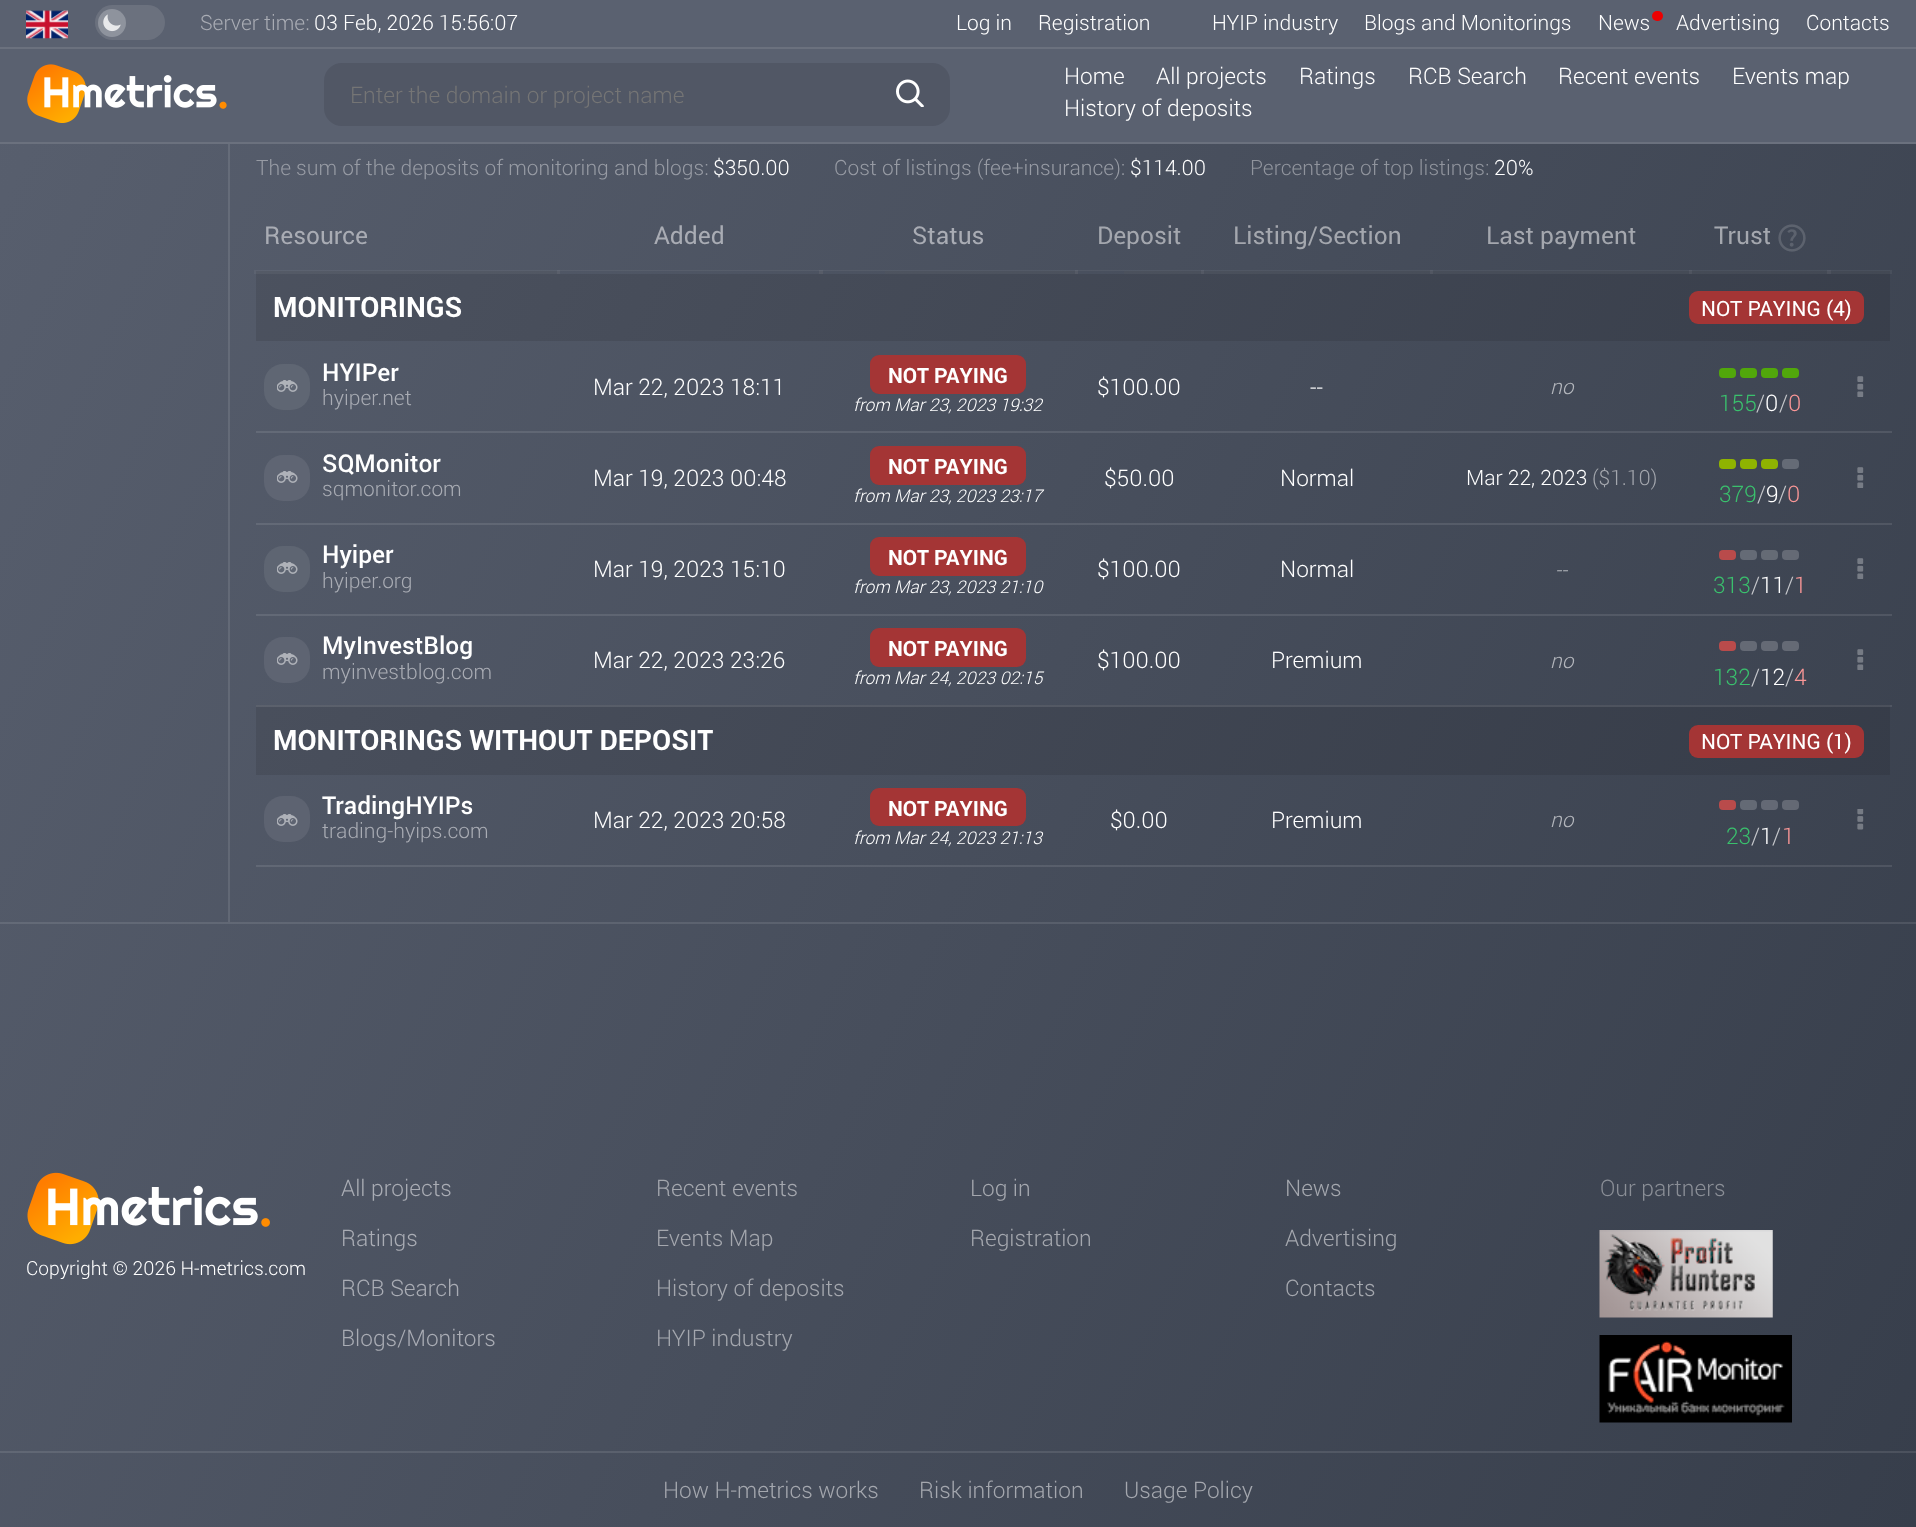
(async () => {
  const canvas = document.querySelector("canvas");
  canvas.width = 1916;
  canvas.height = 1527;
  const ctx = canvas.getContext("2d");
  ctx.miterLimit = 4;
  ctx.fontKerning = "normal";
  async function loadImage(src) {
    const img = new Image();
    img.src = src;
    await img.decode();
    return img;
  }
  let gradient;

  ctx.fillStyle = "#ffffff";
  ctx.fillRect(0, 0, 1916, 1527);
  gradient = ctx.createLinearGradient(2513, 291, -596, -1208);
  gradient.addColorStop(0, "#373e4b");
  gradient.addColorStop(1, "#676e7e");
  ctx.fillStyle = gradient;
  ctx.fillRect(0, 144, 1916, 1383);
  gradient = ctx.createLinearGradient(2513, 291, -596, -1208);
  gradient.addColorStop(0, "#414854");
  gradient.addColorStop(1, "#6f7584");
  ctx.fillStyle = gradient;
  ctx.fillRect(254, 270, 306, 4);
  ctx.fillRect(557, 270, 266, 1);
  gradient = ctx.createLinearGradient(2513, 291, -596, -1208);
  gradient.addColorStop(0, "#4b515d");
  gradient.addColorStop(1, "#767c8a");
  ctx.fillStyle = gradient;
  ctx.fillRect(557, 270, 3, 4);
  gradient = ctx.createLinearGradient(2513, 291, -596, -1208);
  gradient.addColorStop(0, "#414854");
  gradient.addColorStop(1, "#6f7584");
  ctx.fillStyle = gradient;
  ctx.fillRect(819, 270, 259, 1);
  gradient = ctx.createLinearGradient(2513, 291, -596, -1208);
  gradient.addColorStop(0, "#4b515d");
  gradient.addColorStop(1, "#767c8a");
  ctx.fillStyle = gradient;
  ctx.fillRect(819, 270, 4, 1);
  gradient = ctx.createLinearGradient(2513, 291, -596, -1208);
  gradient.addColorStop(0, "#414854");
  gradient.addColorStop(1, "#6f7584");
  ctx.fillStyle = gradient;
  ctx.fillRect(1075, 270, 129, 1);
  gradient = ctx.createLinearGradient(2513, 291, -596, -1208);
  gradient.addColorStop(0, "#4b515d");
  gradient.addColorStop(1, "#767c8a");
  ctx.fillStyle = gradient;
  ctx.fillRect(1075, 270, 3, 4);
  gradient = ctx.createLinearGradient(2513, 291, -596, -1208);
  gradient.addColorStop(0, "#414854");
  gradient.addColorStop(1, "#6f7584");
  ctx.fillStyle = gradient;
  ctx.fillRect(1201, 270, 232, 1);
  gradient = ctx.createLinearGradient(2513, 291, -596, -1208);
  gradient.addColorStop(0, "#4b515d");
  gradient.addColorStop(1, "#767c8a");
  ctx.fillStyle = gradient;
  ctx.fillRect(1201, 270, 3, 4);
  gradient = ctx.createLinearGradient(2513, 291, -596, -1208);
  gradient.addColorStop(0, "#414854");
  gradient.addColorStop(1, "#6f7584");
  ctx.fillStyle = gradient;
  ctx.fillRect(1430, 270, 262, 1);
  gradient = ctx.createLinearGradient(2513, 291, -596, -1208);
  gradient.addColorStop(0, "#4b515d");
  gradient.addColorStop(1, "#767c8a");
  ctx.fillStyle = gradient;
  ctx.fillRect(1430, 270, 3, 4);
  gradient = ctx.createLinearGradient(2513, 291, -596, -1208);
  gradient.addColorStop(0, "#414854");
  gradient.addColorStop(1, "#6f7584");
  ctx.fillStyle = gradient;
  ctx.fillRect(1689, 270, 142, 1);
  gradient = ctx.createLinearGradient(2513, 291, -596, -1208);
  gradient.addColorStop(0, "#4b515d");
  gradient.addColorStop(1, "#767c8a");
  ctx.fillStyle = gradient;
  ctx.fillRect(1689, 270, 3, 4);
  gradient = ctx.createLinearGradient(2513, 291, -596, -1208);
  gradient.addColorStop(0, "#414854");
  gradient.addColorStop(1, "#6f7584");
  ctx.fillStyle = gradient;
  ctx.fillRect(1827, 270, 65, 4);
  gradient = ctx.createLinearGradient(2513, 291, -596, -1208);
  gradient.addColorStop(0, "#4b515d");
  gradient.addColorStop(1, "#767c8a");
  ctx.fillStyle = gradient;
  ctx.fillRect(1827, 270, 4, 1);
  gradient = ctx.createLinearGradient(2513, 291, -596, -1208);
  gradient.addColorStop(0, "#4b515d");
  gradient.addColorStop(1, "#767d8b");
  ctx.fillStyle = gradient;
  ctx.fillRect(256, 431, 1636, 2);
  ctx.fillRect(256, 523, 1636, 2);
  ctx.fillRect(256, 614, 1636, 2);
  ctx.fillRect(1890, 705, 2, 2);
  ctx.fillRect(256, 865, 1636, 2);
  gradient = ctx.createLinearGradient(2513, 291, -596, -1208);
  gradient.addColorStop(0, "#323844");
  gradient.addColorStop(1, "#5d6371");
  ctx.fillStyle = gradient;
  ctx.fillRect(256, 707, 1634, 68);
  gradient = ctx.createLinearGradient(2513, 291, -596, -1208);
  gradient.addColorStop(0, "#474c57");
  gradient.addColorStop(1, "#6d737f");
  ctx.fillStyle = gradient;
  ctx.fillRect(256, 705, 1634, 2);
  gradient = ctx.createLinearGradient(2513, 291, -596, -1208);
  gradient.addColorStop(0, "#323844");
  gradient.addColorStop(1, "#5d6371");
  ctx.fillStyle = gradient;
  ctx.fillRect(256, 274, 1634, 67);
  gradient = ctx.createLinearGradient(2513, 291, -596, -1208);
  gradient.addColorStop(0, "#3c424d");
  gradient.addColorStop(1, "#656b78");
  ctx.fillStyle = gradient;
  ctx.fillRect(256, 271, 304, 3);
  gradient = ctx.createLinearGradient(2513, 291, -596, -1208);
  gradient.addColorStop(0, "#464b56");
  gradient.addColorStop(1, "#6d727f");
  ctx.fillStyle = gradient;
  ctx.fillRect(557, 271, 3, 3);
  gradient = ctx.createLinearGradient(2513, 291, -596, -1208);
  gradient.addColorStop(0, "#3c424d");
  gradient.addColorStop(1, "#656b78");
  ctx.fillStyle = gradient;
  ctx.fillRect(885, 271, 193, 3);
  gradient = ctx.createLinearGradient(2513, 291, -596, -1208);
  gradient.addColorStop(0, "#464b56");
  gradient.addColorStop(1, "#6d727f");
  ctx.fillStyle = gradient;
  ctx.fillRect(819, 271, 4, 3);
  gradient = ctx.createLinearGradient(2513, 291, -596, -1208);
  gradient.addColorStop(0, "#3c424d");
  gradient.addColorStop(1, "#656b78");
  ctx.fillStyle = gradient;
  ctx.fillRect(1124, 271, 80, 3);
  gradient = ctx.createLinearGradient(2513, 291, -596, -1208);
  gradient.addColorStop(0, "#464b56");
  gradient.addColorStop(1, "#6d727f");
  ctx.fillStyle = gradient;
  ctx.fillRect(1075, 271, 3, 3);
  gradient = ctx.createLinearGradient(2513, 291, -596, -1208);
  gradient.addColorStop(0, "#3c424d");
  gradient.addColorStop(1, "#656b78");
  ctx.fillStyle = gradient;
  ctx.fillRect(1201, 271, 232, 3);
  gradient = ctx.createLinearGradient(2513, 291, -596, -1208);
  gradient.addColorStop(0, "#464b56");
  gradient.addColorStop(1, "#6d727f");
  ctx.fillStyle = gradient;
  ctx.fillRect(1201, 271, 3, 3);
  gradient = ctx.createLinearGradient(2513, 291, -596, -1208);
  gradient.addColorStop(0, "#3c424d");
  gradient.addColorStop(1, "#656b78");
  ctx.fillStyle = gradient;
  ctx.fillRect(1430, 271, 262, 3);
  gradient = ctx.createLinearGradient(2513, 291, -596, -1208);
  gradient.addColorStop(0, "#464b56");
  gradient.addColorStop(1, "#6d727f");
  ctx.fillStyle = gradient;
  ctx.fillRect(1430, 271, 3, 3);
  gradient = ctx.createLinearGradient(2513, 291, -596, -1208);
  gradient.addColorStop(0, "#3c424d");
  gradient.addColorStop(1, "#656b78");
  ctx.fillStyle = gradient;
  ctx.fillRect(1689, 271, 142, 3);
  gradient = ctx.createLinearGradient(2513, 291, -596, -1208);
  gradient.addColorStop(0, "#464b56");
  gradient.addColorStop(1, "#6d727f");
  ctx.fillStyle = gradient;
  ctx.fillRect(1689, 271, 3, 3);
  gradient = ctx.createLinearGradient(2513, 291, -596, -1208);
  gradient.addColorStop(0, "#3c424d");
  gradient.addColorStop(1, "#656b78");
  ctx.fillStyle = gradient;
  ctx.fillRect(1827, 271, 63, 3);
  gradient = ctx.createLinearGradient(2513, 291, -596, -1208);
  gradient.addColorStop(0, "#464b56");
  gradient.addColorStop(1, "#6d727f");
  ctx.fillStyle = gradient;
  ctx.fillRect(1827, 271, 4, 3);
  gradient = ctx.createLinearGradient(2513, 291, -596, -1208);
  gradient.addColorStop(0, "#4b515d");
  gradient.addColorStop(1, "#767d8b");
  ctx.fillStyle = gradient;
  ctx.fillRect(228, 144, 2, 778);
  ctx.fillRect(0, 1451, 1916, 2);
  ctx.fillRect(0, 922, 1916, 2);
  ctx.fillStyle = "#5a6170";
  ctx.fillRect(0, 0, 1916, 47);
  ctx.fillStyle = "#6b717e";
  ctx.fillRect(0, 47, 1916, 2);
  ctx.drawImage(await loadImage("img/1.png"), 26, 10, 42, 29);
  ctx.beginPath();
  ctx.roundRect(95, 5, 70, 35, 17.5);
  ctx.fill();
  ctx.fillStyle = "#8e939d";
  ctx.beginPath();
  ctx.arc(112, 23, 14, 0, Math.PI * 2);
  ctx.fill();
  ctx.drawImage(await loadImage("img/2.png"), 103, 14, 18, 18);
  ctx.fillStyle = "#ec0000";
  ctx.beginPath();
  ctx.roundRect(1652, 11, 11, 10, 5);
  ctx.fill();
  ctx.fillStyle = "#5a6170";
  ctx.fillRect(0, 49, 1916, 93);
  ctx.fillStyle = "#6b717e";
  ctx.fillRect(0, 142, 1916, 2);
  ctx.drawImage(await loadImage("img/3.png"), 27, 64, 200, 59);
  ctx.fillStyle = "#515765";
  ctx.beginPath();
  ctx.roundRect(324, 63, 626, 63, 18);
  ctx.fill();
  ctx.drawImage(await loadImage("img/4.png"), 896, 79, 28, 28);
  ctx.drawImage(await loadImage("img/5.png"), 1778, 224, 28, 28);
  ctx.fillStyle = "#a43535";
  ctx.beginPath();
  ctx.roundRect(1689, 291, 175, 33, 9);
  ctx.fill();
  ctx.fillStyle = "#5f6673";
  ctx.beginPath();
  ctx.roundRect(264, 364, 46, 46, 19);
  ctx.fill();
  ctx.drawImage(await loadImage("img/6.png"), 277, 380, 21, 12);
  ctx.fillStyle = "#a43535";
  ctx.beginPath();
  ctx.roundRect(870, 355, 156, 39, 9);
  ctx.fill();
  ctx.drawImage(await loadImage("img/7.png"), 1857, 376, 7, 21);
  ctx.fillStyle = "#51a70b";
  ctx.beginPath();
  ctx.roundRect(1719, 368, 17, 10, 4);
  ctx.fill();
  ctx.beginPath();
  ctx.roundRect(1740, 368, 17, 10, 4);
  ctx.fill();
  ctx.beginPath();
  ctx.roundRect(1761, 368, 17, 10, 4);
  ctx.fill();
  ctx.beginPath();
  ctx.roundRect(1782, 368, 17, 10, 4);
  ctx.fill();
  ctx.fillStyle = "#5f6573";
  ctx.beginPath();
  ctx.roundRect(264, 455, 46, 46, 19);
  ctx.fill();
  ctx.drawImage(await loadImage("img/8.png"), 277, 471, 21, 12);
  ctx.fillStyle = "#a43535";
  ctx.beginPath();
  ctx.roundRect(870, 446, 156, 39, 9);
  ctx.fill();
  ctx.drawImage(await loadImage("img/9.png"), 1857, 467, 7, 21);
  ctx.fillStyle = "#8fb301";
  ctx.beginPath();
  ctx.roundRect(1719, 459, 17, 10, 4);
  ctx.fill();
  ctx.beginPath();
  ctx.roundRect(1740, 459, 17, 10, 4);
  ctx.fill();
  ctx.beginPath();
  ctx.roundRect(1761, 459, 17, 10, 4);
  ctx.fill();
  ctx.fillStyle = "#656b76";
  ctx.beginPath();
  ctx.roundRect(1782, 459, 17, 10, 4);
  ctx.fill();
  ctx.fillStyle = "#5e6572";
  ctx.beginPath();
  ctx.roundRect(264, 546, 46, 46, 19);
  ctx.fill();
  ctx.drawImage(await loadImage("img/10.png"), 277, 562, 21, 12);
  ctx.fillStyle = "#a43535";
  ctx.beginPath();
  ctx.roundRect(870, 537, 156, 39, 9);
  ctx.fill();
  ctx.drawImage(await loadImage("img/11.png"), 1857, 558, 7, 21);
  ctx.fillStyle = "#b94b4b";
  ctx.beginPath();
  ctx.roundRect(1719, 550, 17, 10, 4);
  ctx.fill();
  ctx.fillStyle = "#656b76";
  ctx.beginPath();
  ctx.roundRect(1740, 550, 17, 10, 4);
  ctx.fill();
  ctx.fillStyle = "#656b75";
  ctx.beginPath();
  ctx.roundRect(1761, 550, 17, 10, 4);
  ctx.fill();
  ctx.fillStyle = "#656a75";
  ctx.beginPath();
  ctx.roundRect(1782, 550, 17, 10, 4);
  ctx.fill();
  ctx.fillStyle = "#5e6472";
  ctx.beginPath();
  ctx.roundRect(264, 637, 46, 46, 19);
  ctx.fill();
  ctx.drawImage(await loadImage("img/12.png"), 277, 653, 21, 12);
  ctx.fillStyle = "#a43535";
  ctx.beginPath();
  ctx.roundRect(870, 628, 156, 39, 9);
  ctx.fill();
  ctx.drawImage(await loadImage("img/13.png"), 1857, 649, 7, 21);
  ctx.fillStyle = "#b94b4b";
  ctx.beginPath();
  ctx.roundRect(1719, 641, 17, 10, 4);
  ctx.fill();
  ctx.fillStyle = "#656a75";
  ctx.beginPath();
  ctx.roundRect(1740, 641, 17, 10, 4);
  ctx.fill();
  ctx.beginPath();
  ctx.roundRect(1761, 641, 17, 10, 4);
  ctx.fill();
  ctx.beginPath();
  ctx.roundRect(1782, 641, 17, 10, 4);
  ctx.fill();
  ctx.fillStyle = "#a43535";
  ctx.beginPath();
  ctx.roundRect(1689, 725, 175, 33, 9);
  ctx.fill();
  ctx.fillStyle = "#5d6371";
  ctx.beginPath();
  ctx.roundRect(264, 796, 46, 46, 19);
  ctx.fill();
  ctx.drawImage(await loadImage("img/14.png"), 277, 814, 21, 12);
  ctx.fillStyle = "#a43535";
  ctx.beginPath();
  ctx.roundRect(870, 788, 156, 38, 9);
  ctx.fill();
  ctx.drawImage(await loadImage("img/15.png"), 1857, 809, 7, 21);
  ctx.fillStyle = "#b94b4b";
  ctx.beginPath();
  ctx.roundRect(1719, 800, 17, 10, 4);
  ctx.fill();
  ctx.fillStyle = "#646a75";
  ctx.beginPath();
  ctx.roundRect(1740, 800, 17, 10, 4);
  ctx.fill();
  ctx.fillStyle = "#646975";
  ctx.beginPath();
  ctx.roundRect(1761, 800, 17, 10, 4);
  ctx.fill();
  ctx.fillStyle = "#646974";
  ctx.beginPath();
  ctx.roundRect(1782, 800, 17, 10, 4);
  ctx.fill();
  ctx.drawImage(await loadImage("img/16.png"), 1599, 1230, 174, 88);
  ctx.drawImage(await loadImage("img/17.png"), 1599, 1335, 193, 88);
  ctx.drawImage(await loadImage("img/18.png"), 27, 1172, 243, 73);
  ctx.font = "300 21px Roboto";
  ctx.fillStyle = "#a9acb4";
  ctx.fillText("Server time:", 200, 30);
  ctx.fillStyle = "#ffffff";
  for (const [text, x, y] of [
    ["03 Feb, 2026 15:56:07", 314, 30],
    ["Log in", 956, 30],
    ["Registration", 1038, 30],
    ["HYIP industry", 1212, 30],
    ["Blogs and Monitorings", 1364, 30],
    ["News", 1598, 30],
    ["Advertising", 1676, 30],
    ["Contacts", 1806, 30],
  ]) {
    ctx.fillText(text, x, y);
  }
  ctx.font = "300 22.75px Roboto";
  ctx.fillStyle = "#757575";
  ctx.fillText("Enter the domain or project name", 350, 103);
  ctx.fillStyle = "#ffffff";
  for (const [text, x, y] of [
    ["Home", 1064, 84],
    ["All projects", 1156, 84],
    ["Ratings", 1299, 84],
    ["RCB Search", 1408, 84],
    ["Recent events", 1558, 84],
    ["Events map", 1732, 84],
    ["History of deposits", 1064, 116],
  ]) {
    ctx.fillText(text, x, y);
  }
  ctx.font = "300 21px Roboto";
  ctx.fillStyle = "#979ba4";
  ctx.fillText("The sum of the deposits of monitoring and blogs:", 256, 175);
  ctx.fillStyle = "#ffffff";
  ctx.fillText("$350.00", 713, 175);
  ctx.fillStyle = "#979ba4";
  ctx.fillText("Cost of listings (fee+insurance):", 834, 175);
  ctx.fillStyle = "#ffffff";
  ctx.fillText("$114.00", 1130, 175);
  ctx.fillStyle = "#90949d";
  ctx.fillText("Percentage of top listings:", 1250, 175);
  ctx.fillStyle = "#ffffff";
  ctx.fillText("20%", 1494, 175);
  ctx.font = "24.5px Roboto";
  ctx.fillStyle = "#a9acb4";
  for (const [text, x, y] of [
    ["Resource", 264, 244],
    ["Added", 654, 244],
    ["Status", 912, 244],
  ]) {
    ctx.fillText(text, x, y);
  }
  ctx.fillStyle = "#a4a7ae";
  for (const [text, x, y] of [
    ["Deposit", 1097, 244],
    ["Listing/Section", 1233, 244],
    ["Last payment", 1486, 244],
    ["Trust", 1714, 244],
  ]) {
    ctx.fillText(text, x, y);
  }
  ctx.font = "bold 28px Roboto";
  ctx.fillStyle = "#ffffff";
  ctx.fillText("MONITORINGS", 273, 317);
  ctx.font = "21px Roboto";
  ctx.fillText("NOT PAYING (4)", 1701, 316);
  ctx.font = "500 24.5px Roboto";
  ctx.fillText("HYIPer", 322, 381);
  ctx.font = "300 21px Roboto";
  ctx.fillStyle = "#a9acb4";
  ctx.fillText("hyiper.net", 322, 405);
  ctx.font = "300 22.75px Roboto";
  ctx.fillStyle = "#ffffff";
  ctx.fillText("Mar 22, 2023 18:11", 593, 395);
  ctx.font = "bold 21px Roboto";
  ctx.fillText("NOT PAYING", 888, 383);
  ctx.font = "italic 300 17.5px Roboto";
  ctx.fillText("from Mar 23, 2023 19:32", 853, 411);
  ctx.font = "300 22.75px Roboto";
  ctx.fillText("$100.00", 1097, 395);
  ctx.fillText("--", 1310, 395);
  ctx.font = "italic 300 21px Roboto";
  ctx.fillStyle = "#b3b6bc";
  ctx.fillText("no", 1550, 394);
  ctx.font = "300 22.75px Roboto";
  ctx.fillStyle = "#3ac06d";
  ctx.fillText("155", 1719, 411);
  ctx.fillStyle = "#c6c8cc";
  ctx.fillText("/", 1756, 411);
  ctx.fillStyle = "#ffffff";
  ctx.fillText("0", 1765, 411);
  ctx.fillStyle = "#c6c8cc";
  ctx.fillText("/", 1779, 411);
  ctx.fillStyle = "#fb9797";
  ctx.fillText("0", 1788, 411);
  ctx.font = "500 24.5px Roboto";
  ctx.fillStyle = "#ffffff";
  ctx.fillText("SQMonitor", 322, 472);
  ctx.font = "300 21px Roboto";
  ctx.fillStyle = "#a9acb4";
  ctx.fillText("sqmonitor.com", 322, 496);
  ctx.font = "300 22.75px Roboto";
  ctx.fillStyle = "#ffffff";
  ctx.fillText("Mar 19, 2023 00:48", 593, 486);
  ctx.font = "bold 21px Roboto";
  ctx.fillText("NOT PAYING", 888, 474);
  ctx.font = "italic 300 17.5px Roboto";
  ctx.fillText("from Mar 23, 2023 23:17", 853, 502);
  ctx.font = "300 22.75px Roboto";
  ctx.fillText("$50.00", 1104, 486);
  ctx.fillText("Normal", 1280, 486);
  ctx.font = "300 21px Roboto";
  ctx.fillText("Mar 22, 2023", 1466, 485);
  ctx.fillStyle = "#a4a7ae";
  ctx.fillText("($1.10)", 1592, 485);
  ctx.font = "300 22.75px Roboto";
  ctx.fillStyle = "#3ac06d";
  ctx.fillText("379", 1719, 502);
  ctx.fillStyle = "#c6c8cc";
  ctx.fillText("/", 1757, 502);
  ctx.fillStyle = "#ffffff";
  ctx.fillText("9", 1766, 502);
  ctx.fillStyle = "#c6c8cc";
  ctx.fillText("/", 1778, 502);
  ctx.fillStyle = "#fb9797";
  ctx.fillText("0", 1787, 502);
  ctx.font = "500 24.5px Roboto";
  ctx.fillStyle = "#ffffff";
  ctx.fillText("Hyiper", 322, 563);
  ctx.font = "300 21px Roboto";
  ctx.fillStyle = "#a9acb4";
  ctx.fillText("hyiper.org", 322, 588);
  ctx.font = "300 22.75px Roboto";
  ctx.fillStyle = "#ffffff";
  ctx.fillText("Mar 19, 2023 15:10", 593, 577);
  ctx.font = "bold 21px Roboto";
  ctx.fillText("NOT PAYING", 888, 565);
  ctx.font = "italic 300 17.5px Roboto";
  ctx.fillText("from Mar 23, 2023 21:10", 853, 593);
  ctx.font = "300 22.75px Roboto";
  ctx.fillText("$100.00", 1097, 577);
  ctx.fillText("Normal", 1280, 577);
  ctx.font = "italic 300 21px Roboto";
  ctx.fillStyle = "#b3b6bc";
  ctx.fillText("--", 1555, 577);
  ctx.font = "300 22.75px Roboto";
  ctx.fillStyle = "#3ac06d";
  ctx.fillText("313", 1713, 593);
  ctx.fillStyle = "#c6c8cc";
  ctx.fillText("/", 1751, 593);
  ctx.fillStyle = "#ffffff";
  ctx.fillText("11", 1760, 593);
  ctx.fillStyle = "#c6c8cc";
  ctx.fillText("/", 1785, 593);
  ctx.fillStyle = "#fb9797";
  ctx.fillText("1", 1794, 593);
  ctx.font = "500 24.5px Roboto";
  ctx.fillStyle = "#ffffff";
  ctx.fillText("MyInvestBlog", 322, 654);
  ctx.font = "300 21px Roboto";
  ctx.fillStyle = "#a9acb4";
  ctx.fillText("myinvestblog.com", 322, 679);
  ctx.font = "300 22.75px Roboto";
  ctx.fillStyle = "#ffffff";
  ctx.fillText("Mar 22, 2023 23:26", 593, 668);
  ctx.font = "bold 21px Roboto";
  ctx.fillText("NOT PAYING", 888, 656);
  ctx.font = "italic 300 17.5px Roboto";
  ctx.fillText("from Mar 24, 2023 02:15", 853, 684);
  ctx.font = "300 22.75px Roboto";
  ctx.fillText("$100.00", 1097, 668);
  ctx.fillText("Premium", 1271, 668);
  ctx.font = "italic 300 21px Roboto";
  ctx.fillStyle = "#b3b6bc";
  ctx.fillText("no", 1550, 668);
  ctx.font = "300 22.75px Roboto";
  ctx.fillStyle = "#3ac06d";
  ctx.fillText("132", 1713, 685);
  ctx.fillStyle = "#c6c8cc";
  ctx.fillText("/", 1751, 685);
  ctx.fillStyle = "#ffffff";
  ctx.fillText("12", 1760, 685);
  ctx.fillStyle = "#c6c8cc";
  ctx.fillText("/", 1785, 685);
  ctx.fillStyle = "#fb9797";
  ctx.fillText("4", 1794, 685);
  ctx.font = "bold 28px Roboto";
  ctx.fillStyle = "#ffffff";
  ctx.fillText("MONITORINGS WITHOUT DEPOSIT", 273, 750);
  ctx.font = "21px Roboto";
  ctx.fillText("NOT PAYING (1)", 1701, 749);
  ctx.font = "500 24.5px Roboto";
  ctx.fillText("TradingHYIPs", 322, 814);
  ctx.font = "300 21px Roboto";
  ctx.fillStyle = "#a9acb4";
  ctx.fillText("trading-hyips.com", 322, 838);
  ctx.font = "300 22.75px Roboto";
  ctx.fillStyle = "#ffffff";
  ctx.fillText("Mar 22, 2023 20:58", 593, 828);
  ctx.font = "bold 21px Roboto";
  ctx.fillText("NOT PAYING", 888, 816);
  ctx.font = "italic 300 17.5px Roboto";
  ctx.fillText("from Mar 24, 2023 21:13", 853, 844);
  ctx.font = "300 22.75px Roboto";
  ctx.fillText("$0.00", 1110, 828);
  ctx.fillText("Premium", 1271, 828);
  ctx.font = "italic 300 21px Roboto";
  ctx.fillStyle = "#b3b6bc";
  ctx.fillText("no", 1550, 827);
  ctx.font = "300 22.75px Roboto";
  ctx.fillStyle = "#3ac06d";
  ctx.fillText("23", 1726, 844);
  ctx.fillStyle = "#c6c8cc";
  ctx.fillText("/", 1751, 844);
  ctx.fillStyle = "#ffffff";
  ctx.fillText("1", 1760, 844);
  ctx.fillStyle = "#c6c8cc";
  ctx.fillText("/", 1772, 844);
  ctx.fillStyle = "#fb9797";
  ctx.fillText("1", 1782, 844);
  ctx.fillStyle = "#a9acb4";
  for (const [text, x, y] of [
    ["All projects", 341, 1196],
    ["Ratings", 341, 1246],
    ["RCB Search", 341, 1296],
    ["Blogs/Monitors", 341, 1346],
  ]) {
    ctx.fillText(text, x, y);
  }
  ctx.fillStyle = "#a4a7ae";
  for (const [text, x, y] of [
    ["Recent events", 656, 1196],
    ["Events Map", 656, 1246],
    ["History of deposits", 656, 1296],
    ["HYIP industry", 656, 1346],
    ["Log in", 970, 1196],
    ["Registration", 970, 1246],
    ["News", 1285, 1196],
    ["Advertising", 1285, 1246],
    ["Contacts", 1285, 1296],
  ]) {
    ctx.fillText(text, x, y);
  }
  ctx.fillStyle = "#8a8e96";
  ctx.fillText("Our partners", 1600, 1196);
  ctx.font = "300 19.25px Roboto";
  ctx.fillStyle = "#ffffff";
  ctx.fillText("Copyright © 2026 H-metrics.com", 26, 1275);
  ctx.font = "300 22.75px Roboto";
  ctx.fillStyle = "#a4a7ae";
  for (const [text, x, y] of [
    ["How H-metrics works", 663, 1498],
    ["Risk information", 919, 1498],
    ["Usage Policy", 1124, 1498],
  ]) {
    ctx.fillText(text, x, y);
  }
})();
